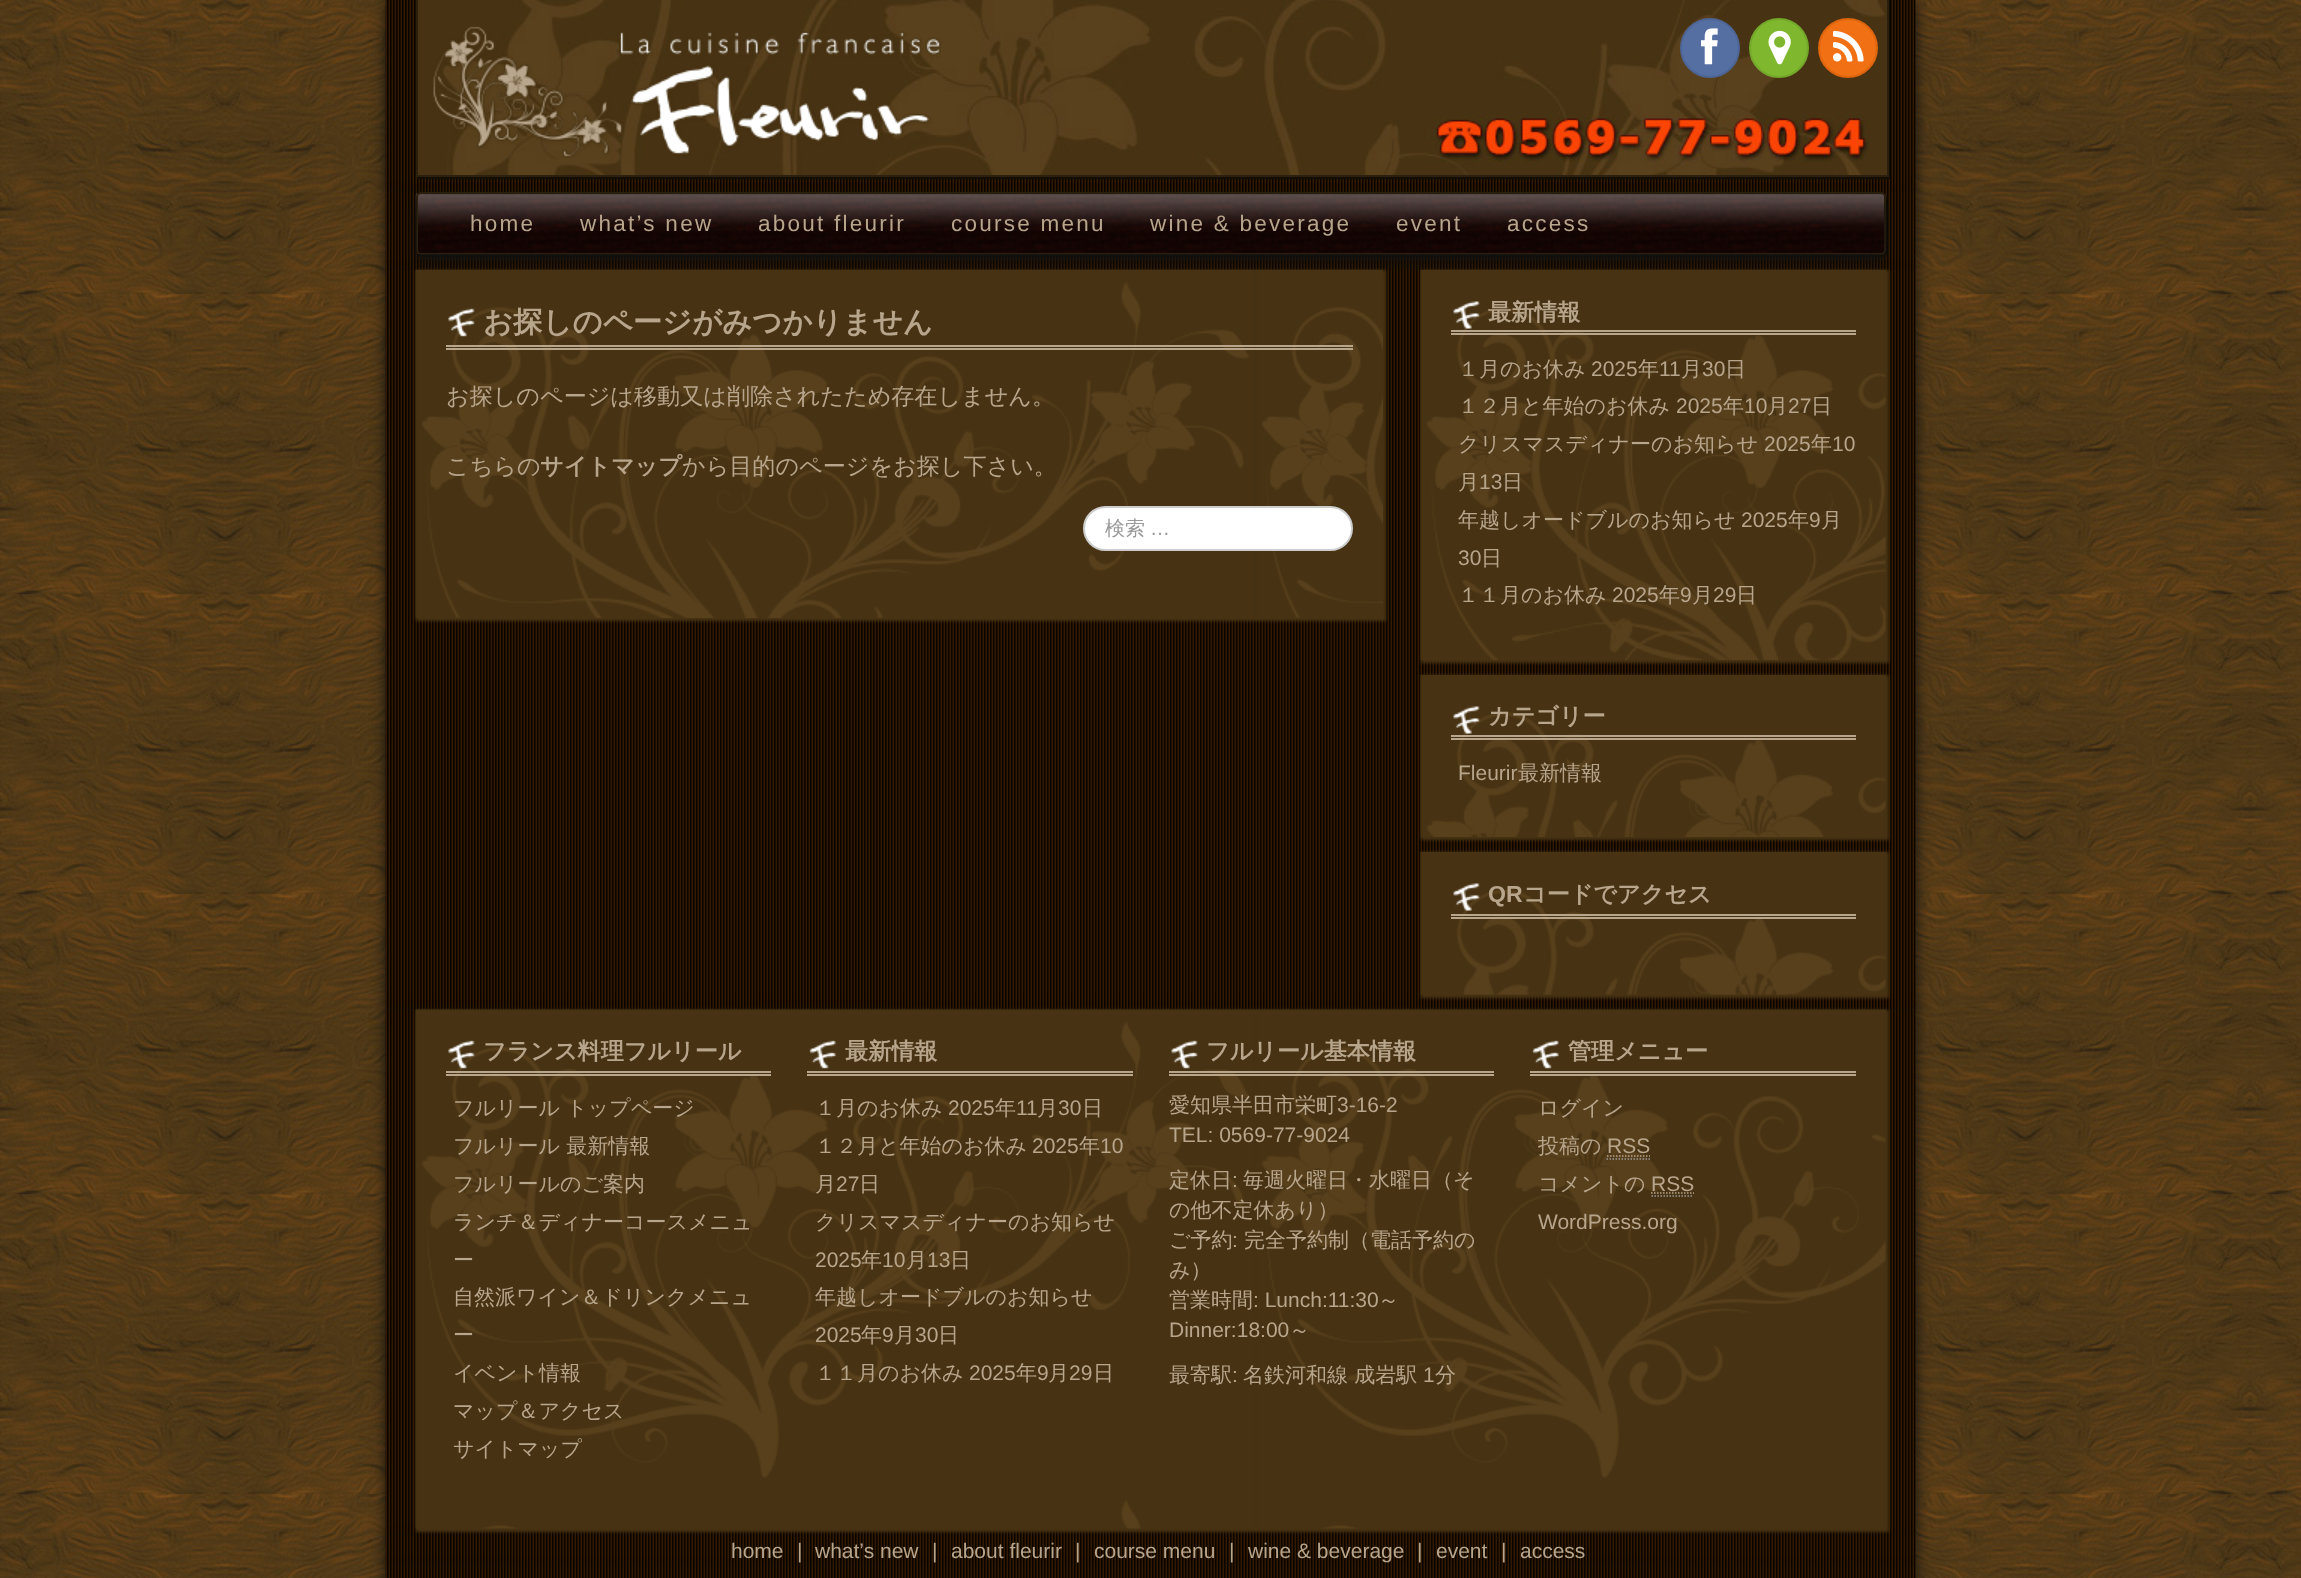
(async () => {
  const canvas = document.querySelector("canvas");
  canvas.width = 2301;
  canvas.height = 1578;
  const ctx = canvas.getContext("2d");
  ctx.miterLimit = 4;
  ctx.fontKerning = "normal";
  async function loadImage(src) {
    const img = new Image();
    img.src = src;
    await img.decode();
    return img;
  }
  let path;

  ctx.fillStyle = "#ffffff";
  ctx.fillRect(0, 0, 2301, 1578);
  ctx.drawImage(await loadImage("img/1.png"), 0, 0, 2301, 1578);
  ctx.fillStyle = "#111111";
  ctx.filter = "blur(7.5px)";
  ctx.beginPath();
  ctx.rect(386, 2, 1530, 198);
  ctx.fill();
  ctx.filter = "none";
  ctx.drawImage(await loadImage("img/2.png"), 385, 0, 1531, 192);
  ctx.fillStyle = "#120d05";
  path = new Path2D("M417 177V179H1890V-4H1888V177Z");
  ctx.fill(path);
  ctx.fillStyle = "#473313";
  ctx.fillRect(418, 0, 1469, 175);
  ctx.drawImage(await loadImage("img/3.png"), 443, 0, 1442, 175);
  ctx.strokeStyle = "#2c200c";
  ctx.lineWidth = 2;
  ctx.strokeRect(417, -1, 1471, 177);
  ctx.drawImage(await loadImage("img/4.png"), 433, 26, 508, 132);
  ctx.fillStyle = "#556fa3";
  ctx.beginPath();
  ctx.arc(1710, 48, 29, 0, Math.PI * 2);
  ctx.fill();
  ctx.strokeStyle = "#4d6595";
  ctx.stroke();
  ctx.drawImage(await loadImage("img/5.png"), 1701, 28, 17, 37);
  ctx.fillStyle = "#7fb72f";
  ctx.beginPath();
  ctx.arc(1779, 48, 29, 0, Math.PI * 2);
  ctx.fill();
  ctx.strokeStyle = "#74a82a";
  ctx.stroke();
  ctx.drawImage(await loadImage("img/6.png"), 1768, 30, 23, 35);
  ctx.fillStyle = "#f07013";
  ctx.beginPath();
  ctx.arc(1848, 48, 29, 0, Math.PI * 2);
  ctx.fill();
  ctx.strokeStyle = "#dc650e";
  ctx.stroke();
  ctx.drawImage(await loadImage("img/7.png"), 1833, 30, 31, 32);
  ctx.fillStyle = "#111111";
  ctx.filter = "blur(7.5px)";
  ctx.beginPath();
  ctx.rect(386, 200, 1530, 78);
  ctx.fill();
  ctx.filter = "none";
  ctx.drawImage(await loadImage("img/8.png"), 385, 192, 1531, 78);
  ctx.fillStyle = "#120d05";
  path = new Path2D("M418 254C418 256 420 257 422 257H1882C1885 257 1887 255 1887 252V199C1887 198 1886 196 1885 195L1886 250C1886 253 1883 255 1881 255H420Z");
  ctx.fill(path);
  ctx.drawImage(await loadImage("img/9.png"), 415, 193, 1471, 62);
  ctx.beginPath();
  ctx.roundRect(417, 193, 1468, 61, 4);
  ctx.strokeStyle = "#2c200c";
  ctx.stroke();
  ctx.save();
  path = new Path2D("M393 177H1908V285H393ZM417 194H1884V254H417Z");
  ctx.clip(path, "evenodd");
  ctx.fillStyle = "#111111";
  ctx.filter = "blur(7.5px)";
  ctx.beginPath();
  ctx.rect(417, 201, 1467, 60);
  ctx.fill();
  ctx.filter = "none";
  ctx.restore();
  ctx.fillStyle = "#111111";
  ctx.filter = "blur(7.5px)";
  ctx.beginPath();
  ctx.rect(386, 278, 1530, 739);
  ctx.fill();
  ctx.filter = "none";
  ctx.drawImage(await loadImage("img/10.png"), 385, 270, 1531, 740);
  ctx.save();
  path = new Path2D("M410 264H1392V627H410ZM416 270H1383V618H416Z");
  ctx.clip(path, "evenodd");
  ctx.fillStyle = "#473313";
  ctx.filter = "blur(1.5px)";
  ctx.beginPath();
  ctx.rect(416, 270, 970, 351);
  ctx.fill();
  ctx.filter = "none";
  ctx.restore();
  ctx.drawImage(await loadImage("img/11.png"), 415, 270, 968, 348);
  ctx.drawImage(await loadImage("img/12.png"), 448, 308, 27, 29);
  ctx.fillStyle = "#b7a58c";
  ctx.fillRect(446, 345, 907, 2);
  ctx.fillRect(446, 348, 907, 2);
  ctx.fillStyle = "#ffffff";
  ctx.beginPath();
  ctx.roundRect(1084, 507, 268, 43, 21.5);
  ctx.fill();
  ctx.strokeStyle = "#cccccc";
  ctx.stroke();
  ctx.fillStyle = "#473313";
  ctx.filter = "blur(1.5px)";
  ctx.beginPath();
  ctx.rect(1421, 270, 468, 393);
  ctx.fill();
  ctx.filter = "none";
  ctx.fillRect(1421, 270, 465, 390);
  ctx.drawImage(await loadImage("img/13.png"), 1420, 270, 466, 390);
  ctx.drawImage(await loadImage("img/14.png"), 1453, 301, 27, 28);
  ctx.fillStyle = "#b7a58c";
  ctx.fillRect(1451, 330, 405, 2);
  ctx.fillRect(1451, 333, 405, 2);
  ctx.fillStyle = "#473313";
  ctx.filter = "blur(1.5px)";
  ctx.beginPath();
  ctx.rect(1421, 675, 468, 165);
  ctx.fill();
  ctx.filter = "none";
  ctx.fillRect(1421, 675, 465, 162);
  ctx.drawImage(await loadImage("img/15.png"), 1420, 675, 466, 162);
  ctx.drawImage(await loadImage("img/16.png"), 1453, 706, 27, 28);
  ctx.fillStyle = "#b7a58c";
  ctx.fillRect(1451, 735, 405, 2);
  ctx.fillRect(1451, 738, 405, 2);
  ctx.fillStyle = "#473313";
  ctx.filter = "blur(1.5px)";
  ctx.beginPath();
  ctx.rect(1421, 852, 468, 146);
  ctx.fill();
  ctx.filter = "none";
  ctx.fillStyle = "#111111";
  ctx.filter = "blur(7.5px)";
  ctx.beginPath();
  ctx.rect(386, 1017, 1530, 527);
  ctx.fill();
  ctx.filter = "none";
  ctx.fillStyle = "#473313";
  ctx.fillRect(1421, 852, 465, 143);
  ctx.drawImage(await loadImage("img/17.png"), 1420, 852, 466, 143);
  ctx.drawImage(await loadImage("img/18.png"), 1453, 883, 27, 28);
  ctx.fillStyle = "#b7a58c";
  ctx.fillRect(1451, 914, 405, 2);
  ctx.fillRect(1451, 917, 405, 2);
  ctx.drawImage(await loadImage("img/19.png"), 385, 1009, 1531, 527);
  ctx.fillStyle = "#111111";
  ctx.filter = "blur(7.5px)";
  ctx.beginPath();
  ctx.rect(386, 1544, 1530, 30);
  ctx.fill();
  ctx.filter = "none";
  ctx.drawImage(await loadImage("img/24.png"), 385, 1536, 1531, 30);
  ctx.fillStyle = "#473313";
  ctx.filter = "blur(1.5px)";
  ctx.beginPath();
  ctx.rect(416, 1010, 1473, 522);
  ctx.fill();
  ctx.filter = "none";
  ctx.fillRect(416, 1010, 1470, 519);
  ctx.drawImage(await loadImage("img/20.png"), 415, 1009, 1471, 520);
  ctx.drawImage(await loadImage("img/21.png"), 448, 1040, 27, 29);
  ctx.fillStyle = "#b7a58c";
  ctx.fillRect(446, 1071, 325, 2);
  ctx.fillRect(446, 1074, 325, 2);
  ctx.drawImage(await loadImage("img/22.png"), 809, 1040, 27, 29);
  ctx.fillRect(807, 1071, 326, 2);
  ctx.fillRect(807, 1074, 326, 2);
  ctx.drawImage(await loadImage("img/23.png"), 1171, 1040, 27, 29);
  ctx.fillRect(1169, 1071, 325, 2);
  ctx.fillRect(1169, 1074, 325, 2);
  ctx.drawImage(await loadImage("img/22.png"), 1532, 1040, 27, 29);
  ctx.fillRect(1530, 1071, 326, 2);
  ctx.fillRect(1530, 1074, 326, 2);
  path = new Path2D("M1606.5 1159H1650");
  ctx.strokeStyle = "#999999";
  ctx.lineWidth = 1.5;
  ctx.setLineDash([1.5, 1.5]);
  ctx.stroke(path);
  path = new Path2D("M1607 1156H1650");
  ctx.strokeStyle = "#b7a58c";
  ctx.stroke(path);
  path = new Path2D("M1651.5 1196H1693.5");
  ctx.strokeStyle = "#999999";
  ctx.stroke(path);
  path = new Path2D("M1651 1193H1694");
  ctx.strokeStyle = "#b7a58c";
  ctx.stroke(path);
  ctx.fillStyle = "#111111";
  ctx.filter = "blur(7.5px)";
  ctx.beginPath();
  ctx.rect(386, 1574, 1530, 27);
  ctx.fill();
  ctx.filter = "none";
  ctx.drawImage(await loadImage("img/25.png"), 385, 1566, 1531, 12);
  ctx.letterSpacing = "2.25px";
  ctx.font = "22.5px Liberation Sans";
  ctx.fillStyle = "#b7a58c";
  for (const [text, x, y] of [
    ["home", 470, 231],
    ["what’s new", 580, 231],
    ["about fleurir", 758, 231],
    ["course menu", 951, 231],
    ["wine & beverage", 1150, 231],
    ["event", 1396, 231],
    ["access", 1507, 231],
  ]) {
    ctx.fillText(text, x, y);
  }
  ctx.letterSpacing = "0px";
  ctx.font = "bold 29.4px WenQuanYi Zen Hei";
  ctx.fillText("お探しのページがみつかりません", 483, 332);
  ctx.font = "500 23.1px WenQuanYi Zen Hei";
  ctx.fillText("お探しのページは移動又は削除されたため存在しません。", 446, 404);
  ctx.fillText("こちらの", 446, 474);
  ctx.font = "bold 23.1px WenQuanYi Zen Hei";
  ctx.fillText("サイトマップ", 540, 474);
  ctx.font = "500 23.1px WenQuanYi Zen Hei";
  ctx.fillText("から目的のページをお探し下さい。", 682, 474);
  ctx.font = "500 20px WenQuanYi Zen Hei";
  ctx.fillStyle = "#999999";
  ctx.fillText("検索", 1105, 535);
  ctx.font = "20px Liberation Sans";
  ctx.fillText("…", 1150, 535);
  ctx.font = "bold 23.1px WenQuanYi Zen Hei";
  ctx.fillStyle = "#b7a58c";
  ctx.fillText("最新情報", 1488, 320);
  ctx.font = "500 21px WenQuanYi Zen Hei";
  ctx.fillText("１月のお休み", 1458, 376);
  ctx.font = "21px Liberation Sans";
  ctx.fillText("2025", 1591, 376);
  ctx.font = "500 21px WenQuanYi Zen Hei";
  ctx.fillText("年", 1638, 376);
  ctx.font = "21px Liberation Sans";
  ctx.fillText("11", 1659, 376);
  ctx.font = "500 21px WenQuanYi Zen Hei";
  ctx.fillText("月", 1681, 376);
  ctx.font = "21px Liberation Sans";
  ctx.fillText("30", 1702, 376);
  ctx.font = "500 21px WenQuanYi Zen Hei";
  ctx.fillText("日", 1725, 376);
  ctx.fillText("１２月と年始のお休み", 1458, 413);
  ctx.font = "21px Liberation Sans";
  ctx.fillText("2025", 1676, 413);
  ctx.font = "500 21px WenQuanYi Zen Hei";
  ctx.fillText("年", 1723, 413);
  ctx.font = "21px Liberation Sans";
  ctx.fillText("10", 1744, 413);
  ctx.font = "500 21px WenQuanYi Zen Hei";
  ctx.fillText("月", 1767, 413);
  ctx.font = "21px Liberation Sans";
  ctx.fillText("27", 1788, 413);
  ctx.font = "500 21px WenQuanYi Zen Hei";
  ctx.fillText("日", 1811, 413);
  ctx.fillText("クリスマスディナーのお知らせ", 1458, 451);
  ctx.font = "21px Liberation Sans";
  ctx.fillText("2025", 1764, 451);
  ctx.font = "500 21px WenQuanYi Zen Hei";
  ctx.fillText("年", 1811, 451);
  ctx.font = "21px Liberation Sans";
  ctx.fillText("10", 1832, 451);
  ctx.font = "500 21px WenQuanYi Zen Hei";
  ctx.fillText("月", 1458, 489);
  ctx.font = "21px Liberation Sans";
  ctx.fillText("13", 1479, 489);
  ctx.font = "500 21px WenQuanYi Zen Hei";
  ctx.fillText("日", 1502, 489);
  ctx.fillText("年越しオードブルのお知らせ", 1458, 527);
  ctx.font = "21px Liberation Sans";
  ctx.fillText("2025", 1741, 527);
  ctx.font = "500 21px WenQuanYi Zen Hei";
  ctx.fillText("年", 1788, 527);
  ctx.font = "21px Liberation Sans";
  ctx.fillText("9", 1809, 527);
  ctx.font = "500 21px WenQuanYi Zen Hei";
  ctx.fillText("月", 1821, 527);
  ctx.font = "21px Liberation Sans";
  ctx.fillText("30", 1458, 565);
  ctx.font = "500 21px WenQuanYi Zen Hei";
  ctx.fillText("日", 1481, 565);
  ctx.fillText("１１月のお休み", 1458, 602);
  ctx.font = "21px Liberation Sans";
  ctx.fillText("2025", 1612, 602);
  ctx.font = "500 21px WenQuanYi Zen Hei";
  ctx.fillText("年", 1659, 602);
  ctx.font = "21px Liberation Sans";
  ctx.fillText("9", 1680, 602);
  ctx.font = "500 21px WenQuanYi Zen Hei";
  ctx.fillText("月", 1692, 602);
  ctx.font = "21px Liberation Sans";
  ctx.fillText("29", 1713, 602);
  ctx.font = "500 21px WenQuanYi Zen Hei";
  ctx.fillText("日", 1736, 602);
  ctx.font = "bold 23.1px WenQuanYi Zen Hei";
  ctx.fillText("カテゴリー", 1488, 724);
  ctx.font = "21px Liberation Sans";
  ctx.fillText("Fleurir", 1458, 780);
  ctx.font = "500 21px WenQuanYi Zen Hei";
  ctx.fillText("最新情報", 1518, 780);
  ctx.font = "bold 23.1px Liberation Sans";
  ctx.fillText("QR", 1488, 902);
  ctx.font = "bold 23.1px WenQuanYi Zen Hei";
  ctx.fillText("コードでアクセス", 1523, 902);
  ctx.fillText("フランス料理フルリール", 483, 1059);
  ctx.font = "500 21px WenQuanYi Zen Hei";
  for (const [text, x, y] of [
    ["フルリール トップページ", 453, 1115],
    ["フルリール 最新情報", 453, 1153],
    ["フルリールのご案内", 453, 1191],
    ["ランチ＆ディナーコースメニュ", 453, 1229],
    ["ー", 453, 1267],
    ["自然派ワイン＆ドリンクメニュ", 453, 1304],
    ["ー", 453, 1342],
    ["イベント情報", 453, 1380],
    ["マップ＆アクセス", 453, 1418],
    ["サイトマップ", 453, 1456],
  ]) {
    ctx.fillText(text, x, y);
  }
  ctx.font = "bold 23.1px WenQuanYi Zen Hei";
  ctx.fillText("最新情報", 845, 1059);
  ctx.font = "500 21px WenQuanYi Zen Hei";
  ctx.fillText("１月のお休み", 815, 1115);
  ctx.font = "21px Liberation Sans";
  ctx.fillText("2025", 948, 1115);
  ctx.font = "500 21px WenQuanYi Zen Hei";
  ctx.fillText("年", 995, 1115);
  ctx.font = "21px Liberation Sans";
  ctx.fillText("11", 1016, 1115);
  ctx.font = "500 21px WenQuanYi Zen Hei";
  ctx.fillText("月", 1037, 1115);
  ctx.font = "21px Liberation Sans";
  ctx.fillText("30", 1058, 1115);
  ctx.font = "500 21px WenQuanYi Zen Hei";
  ctx.fillText("日", 1082, 1115);
  ctx.fillText("１２月と年始のお休み", 815, 1153);
  ctx.font = "21px Liberation Sans";
  ctx.fillText("2025", 1032, 1153);
  ctx.font = "500 21px WenQuanYi Zen Hei";
  ctx.fillText("年", 1079, 1153);
  ctx.font = "21px Liberation Sans";
  ctx.fillText("10", 1100, 1153);
  ctx.font = "500 21px WenQuanYi Zen Hei";
  ctx.fillText("月", 815, 1191);
  ctx.font = "21px Liberation Sans";
  ctx.fillText("27", 836, 1191);
  ctx.font = "500 21px WenQuanYi Zen Hei";
  ctx.fillText("日", 859, 1191);
  ctx.fillText("クリスマスディナーのお知らせ", 815, 1229);
  ctx.font = "21px Liberation Sans";
  ctx.fillText("2025", 815, 1267);
  ctx.font = "500 21px WenQuanYi Zen Hei";
  ctx.fillText("年", 861, 1267);
  ctx.font = "21px Liberation Sans";
  ctx.fillText("10", 882, 1267);
  ctx.font = "500 21px WenQuanYi Zen Hei";
  ctx.fillText("月", 906, 1267);
  ctx.font = "21px Liberation Sans";
  ctx.fillText("13", 927, 1267);
  ctx.font = "500 21px WenQuanYi Zen Hei";
  ctx.fillText("日", 950, 1267);
  ctx.fillText("年越しオードブルのお知らせ", 815, 1304);
  ctx.font = "21px Liberation Sans";
  ctx.fillText("2025", 815, 1342);
  ctx.font = "500 21px WenQuanYi Zen Hei";
  ctx.fillText("年", 861, 1342);
  ctx.font = "21px Liberation Sans";
  ctx.fillText("9", 882, 1342);
  ctx.font = "500 21px WenQuanYi Zen Hei";
  ctx.fillText("月", 894, 1342);
  ctx.font = "21px Liberation Sans";
  ctx.fillText("30", 915, 1342);
  ctx.font = "500 21px WenQuanYi Zen Hei";
  ctx.fillText("日", 938, 1342);
  ctx.fillText("１１月のお休み", 815, 1380);
  ctx.font = "21px Liberation Sans";
  ctx.fillText("2025", 969, 1380);
  ctx.font = "500 21px WenQuanYi Zen Hei";
  ctx.fillText("年", 1016, 1380);
  ctx.font = "21px Liberation Sans";
  ctx.fillText("9", 1037, 1380);
  ctx.font = "500 21px WenQuanYi Zen Hei";
  ctx.fillText("月", 1048, 1380);
  ctx.font = "21px Liberation Sans";
  ctx.fillText("29", 1069, 1380);
  ctx.font = "500 21px WenQuanYi Zen Hei";
  ctx.fillText("日", 1093, 1380);
  ctx.font = "bold 23.1px WenQuanYi Zen Hei";
  ctx.fillText("フルリール基本情報", 1206, 1059);
  ctx.font = "500 21px WenQuanYi Zen Hei";
  ctx.fillText("愛知県半田市栄町", 1169, 1112);
  ctx.font = "21px Liberation Sans";
  ctx.fillText("3-16-2", 1337, 1112);
  ctx.fillText("TEL: 0569-77-9024", 1169, 1142);
  ctx.font = "500 21px WenQuanYi Zen Hei";
  ctx.fillText("定休日", 1169, 1187);
  ctx.font = "21px Liberation Sans";
  ctx.fillText(":", 1232, 1187);
  ctx.font = "500 21px WenQuanYi Zen Hei";
  for (const [text, x, y] of [
    ["毎週火曜日・水曜日（そ", 1243, 1187],
    ["の他不定休あり）", 1169, 1217],
    ["ご予約", 1169, 1247],
  ]) {
    ctx.fillText(text, x, y);
  }
  ctx.font = "21px Liberation Sans";
  ctx.fillText(":", 1232, 1247);
  ctx.font = "500 21px WenQuanYi Zen Hei";
  for (const [text, x, y] of [
    ["完全予約制（電話予約の", 1244, 1247],
    ["み）", 1169, 1277],
    ["営業時間", 1169, 1307],
  ]) {
    ctx.fillText(text, x, y);
  }
  ctx.font = "21px Liberation Sans";
  ctx.fillText(": Lunch:11:30", 1253, 1307);
  ctx.font = "500 21px WenQuanYi Zen Hei";
  ctx.fillText("～", 1378, 1307);
  ctx.font = "21px Liberation Sans";
  ctx.fillText("Dinner:18:00", 1169, 1337);
  ctx.font = "500 21px WenQuanYi Zen Hei";
  ctx.fillText("～", 1289, 1337);
  ctx.fillText("最寄駅", 1169, 1382);
  ctx.font = "21px Liberation Sans";
  ctx.fillText(":", 1232, 1382);
  ctx.font = "500 21px WenQuanYi Zen Hei";
  ctx.fillText("名鉄河和線 成岩駅", 1243, 1382);
  ctx.font = "21px Liberation Sans";
  ctx.fillText("1", 1423, 1382);
  ctx.font = "500 21px WenQuanYi Zen Hei";
  ctx.fillText("分", 1435, 1382);
  ctx.font = "bold 23.1px WenQuanYi Zen Hei";
  ctx.fillText("管理メニュー", 1568, 1059);
  ctx.font = "500 21px WenQuanYi Zen Hei";
  ctx.fillText("ログイン", 1538, 1115);
  ctx.fillText("投稿の", 1538, 1153);
  ctx.font = "21px Liberation Sans";
  ctx.fillText("RSS", 1607, 1153);
  ctx.font = "500 21px WenQuanYi Zen Hei";
  ctx.fillText("コメントの", 1538, 1191);
  ctx.font = "21px Liberation Sans";
  for (const [text, x, y] of [
    ["RSS", 1651, 1191],
    ["WordPress.org", 1538, 1229],
    ["home", 731, 1558],
    ["|", 797, 1558],
    ["what’s new", 815, 1558],
    ["|", 932, 1558],
    ["about fleurir", 951, 1558],
    ["|", 1075, 1558],
    ["course menu", 1094, 1558],
    ["|", 1229, 1558],
    ["wine & beverage", 1248, 1558],
    ["|", 1417, 1558],
    ["event", 1436, 1558],
    ["|", 1501, 1558],
    ["access", 1520, 1558],
  ]) {
    ctx.fillText(text, x, y);
  }
})();
